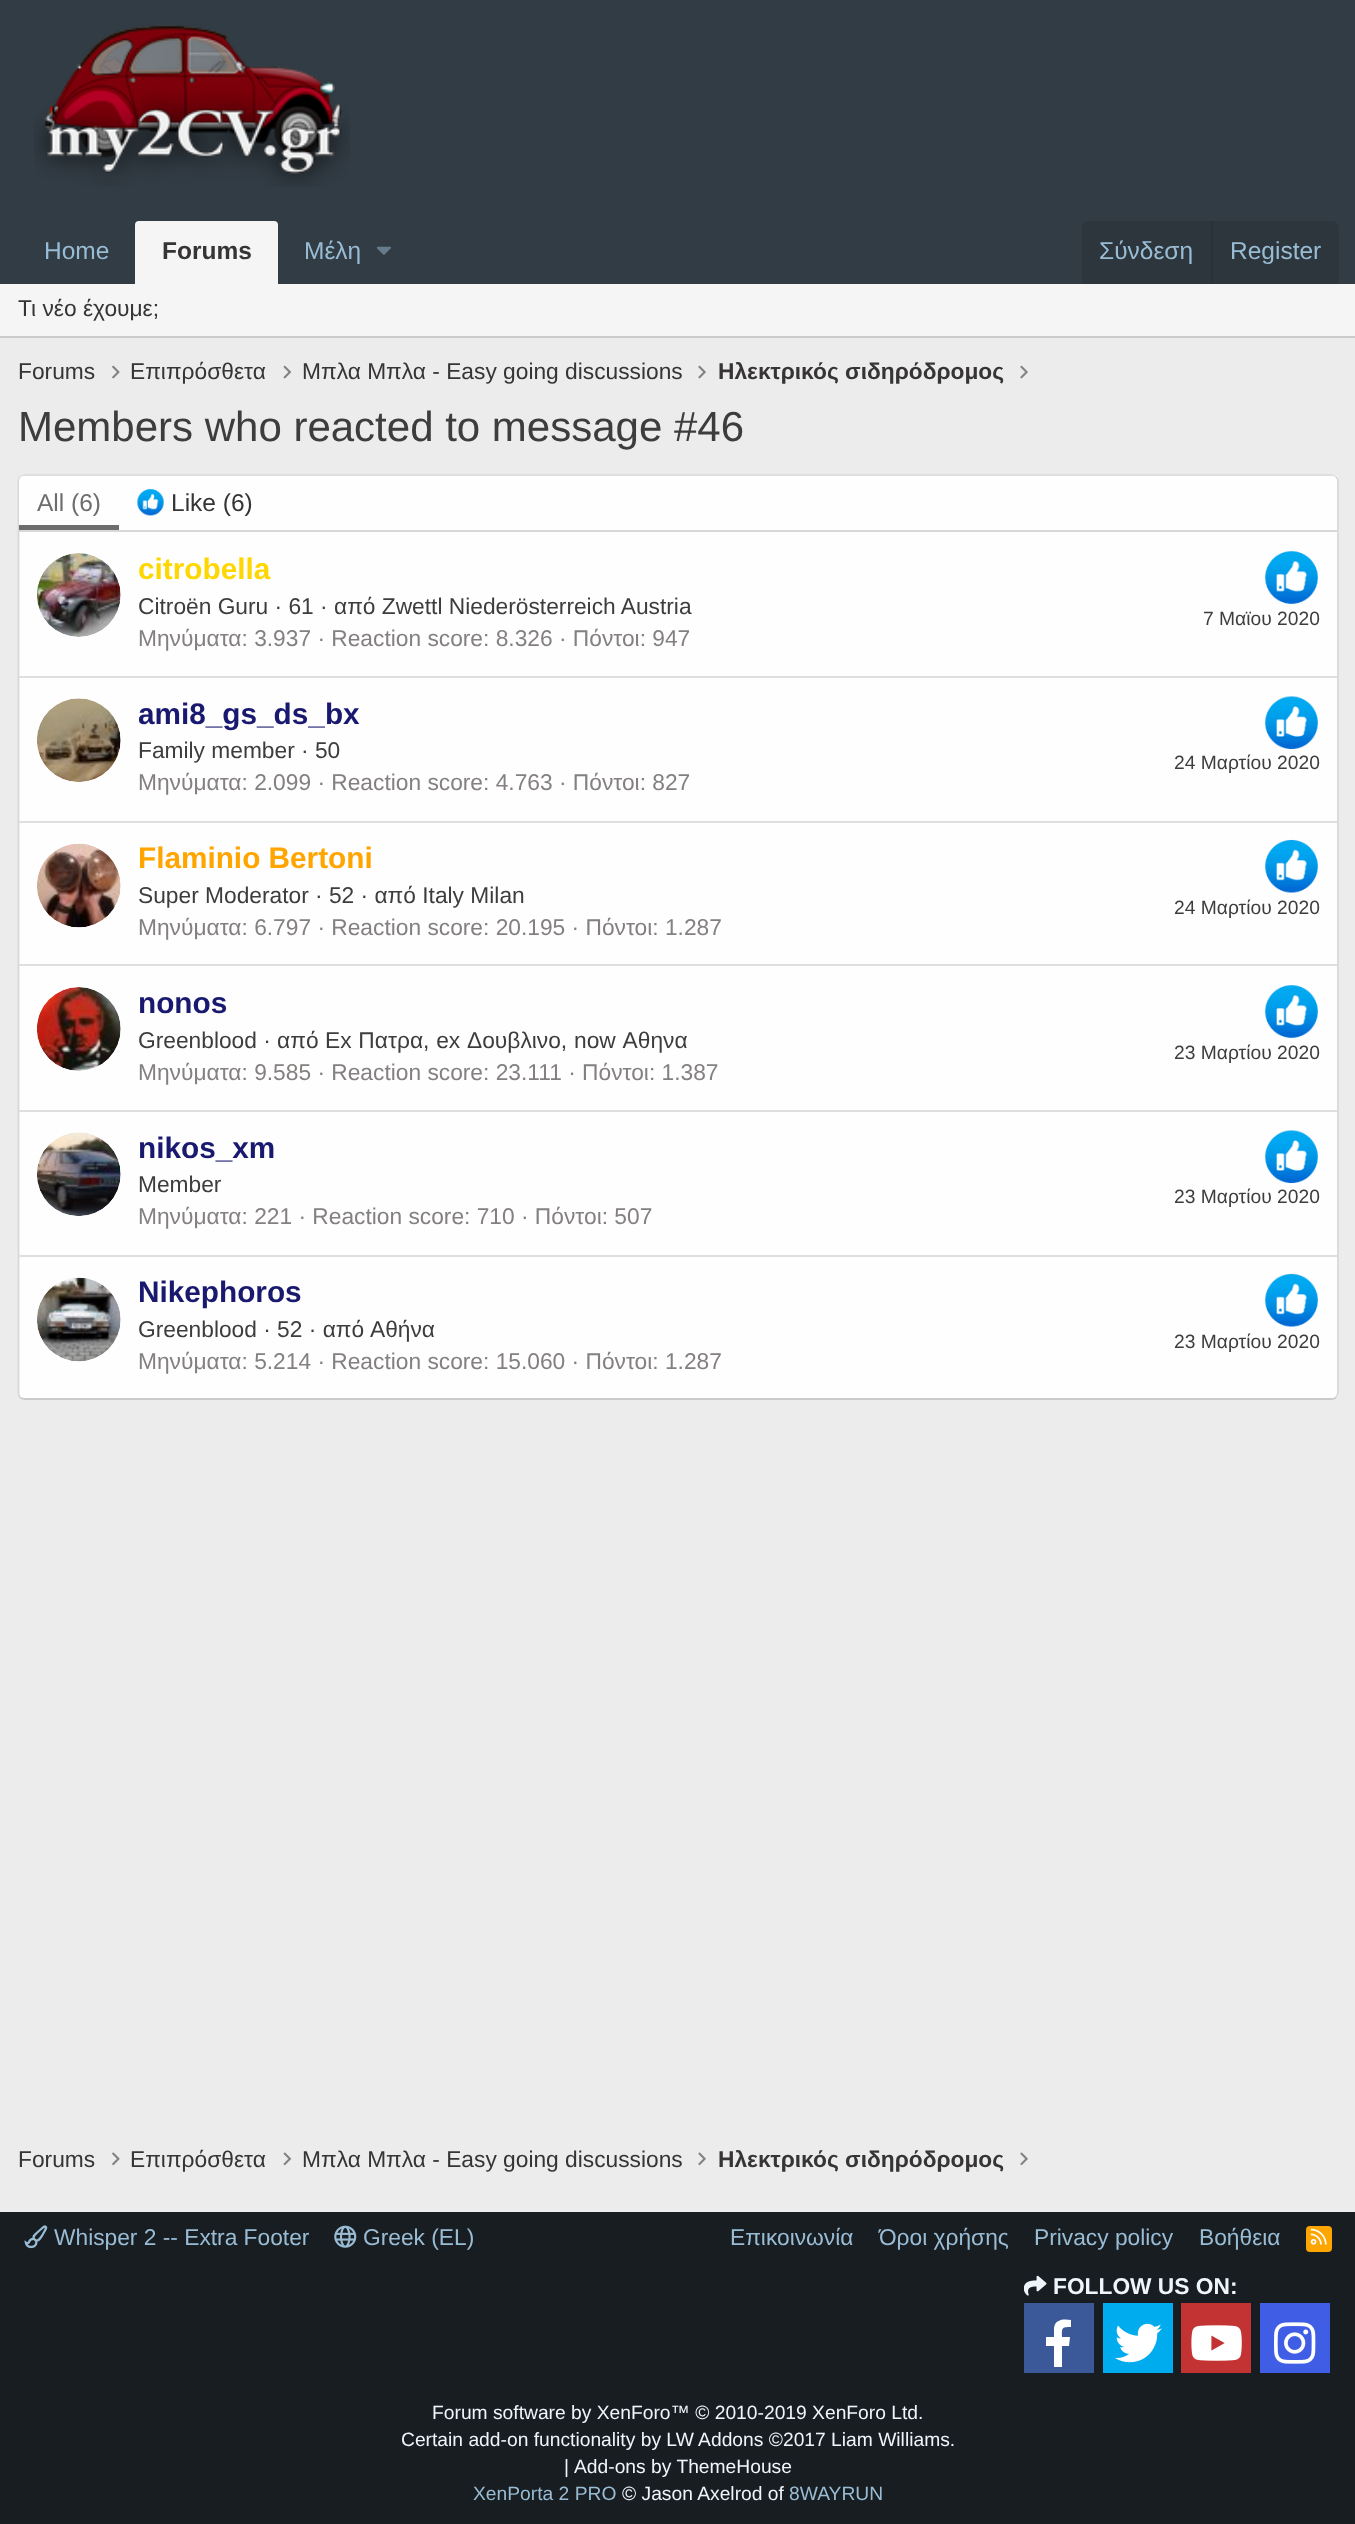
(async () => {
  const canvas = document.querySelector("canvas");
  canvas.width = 1355;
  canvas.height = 2524;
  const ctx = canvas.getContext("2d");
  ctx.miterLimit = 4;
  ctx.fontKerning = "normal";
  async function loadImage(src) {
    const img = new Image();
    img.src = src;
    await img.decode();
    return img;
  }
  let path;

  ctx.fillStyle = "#ececec";
  ctx.fillRect(0, 0, 1355, 2524);
  ctx.fillStyle = "#323c44";
  ctx.fillRect(0, 0, 1355, 284);
  ctx.drawImage(await loadImage("img/1.png"), 34, 24, 316, 163);
  ctx.fillStyle = "#f5f5f5";
  ctx.beginPath();
  ctx.roundRect(135, 221, 143, 63, [4, 4, 0, 0]);
  ctx.fill();
  ctx.drawImage(await loadImage("img/2.png"), 376, 246, 15, 9);
  ctx.fillStyle = "#2e363d";
  ctx.beginPath();
  ctx.roundRect(1082, 221, 257, 63, [7, 7, 0, 0]);
  ctx.fill();
  for (const [x, y, w, h, color] of [
    [1211, 221, 2, 63, "#2a3137"],
    [0, 284, 1355, 52, "#f5f5f5"],
    [0, 336, 1355, 2, "#cbcbcb"],
  ]) {
    ctx.fillStyle = color;
    ctx.fillRect(x, y, w, h);
  }
  ctx.drawImage(await loadImage("img/3.png"), 112, 365, 8, 14);
  ctx.drawImage(await loadImage("img/4.png"), 283, 365, 8, 14);
  ctx.drawImage(await loadImage("img/5.png"), 698, 365, 8, 14);
  ctx.drawImage(await loadImage("img/5.png"), 1020, 365, 8, 14);
  ctx.fillStyle = "#fefefe";
  ctx.beginPath();
  ctx.roundRect(18, 474, 1321, 926, 7);
  ctx.fill();
  path = new Path2D("M20 477C21.5 476 23 475 24.5 475H1332C1333.5 475 1335 476 1336 477");
  ctx.strokeStyle = "#dfdfdf";
  ctx.lineWidth = 1.8;
  ctx.stroke(path);
  path = new Path2D("M1336 477C1337 478 1338 479.5 1338 481V1393C1338 1394.5 1337 1396 1336 1397.5");
  ctx.strokeStyle = "#d8d8d8";
  ctx.stroke(path);
  path = new Path2D("M1336 1397.5C1335 1398.5 1333.5 1399 1332 1399H24.5C23 1399 21.5 1398.5 20 1397.5");
  ctx.strokeStyle = "#cbcbcb";
  ctx.stroke(path);
  path = new Path2D("M20 1397.5C19 1396 18.5 1394.5 18.5 1393V481C18.5 479.5 19 478 20 477");
  ctx.strokeStyle = "#d8d8d8";
  ctx.stroke(path);
  ctx.beginPath();
  ctx.roundRect(19, 476, 1318, 56, [5, 5, 0, 0]);
  ctx.fill();
  ctx.fillStyle = "#d8d8d8";
  ctx.fillRect(19, 530, 1318, 2);
  ctx.fillStyle = "#6d6d6d";
  ctx.fillRect(19, 525, 100, 5);
  ctx.drawImage(await loadImage("img/6.png"), 137, 489, 27, 27);
  ctx.drawImage(await loadImage("img/7.png"), 37, 553, 84, 84);
  ctx.drawImage(await loadImage("img/8.png"), 1264, 550, 55, 55);
  ctx.fillStyle = "#dfdfdf";
  ctx.fillRect(19, 676, 1318, 2);
  ctx.drawImage(await loadImage("img/9.png"), 37, 698, 84, 84);
  ctx.drawImage(await loadImage("img/10.png"), 1264, 696, 55, 54);
  ctx.fillRect(19, 821, 1318, 2);
  ctx.drawImage(await loadImage("img/11.png"), 37, 843, 84, 85);
  ctx.drawImage(await loadImage("img/12.png"), 1264, 839, 55, 54);
  ctx.fillRect(19, 964, 1318, 2);
  ctx.drawImage(await loadImage("img/13.png"), 37, 987, 84, 84);
  ctx.drawImage(await loadImage("img/8.png"), 1264, 984, 55, 55);
  ctx.fillRect(19, 1110, 1318, 2);
  ctx.drawImage(await loadImage("img/14.png"), 37, 1132, 84, 84);
  ctx.drawImage(await loadImage("img/10.png"), 1264, 1130, 55, 54);
  ctx.fillRect(19, 1255, 1318, 2);
  ctx.drawImage(await loadImage("img/15.png"), 37, 1277, 84, 85);
  ctx.drawImage(await loadImage("img/12.png"), 1264, 1273, 55, 54);
  ctx.drawImage(await loadImage("img/16.png"), 112, 2152, 8, 14);
  ctx.drawImage(await loadImage("img/17.png"), 283, 2152, 9, 14);
  ctx.drawImage(await loadImage("img/18.png"), 698, 2152, 8, 14);
  ctx.drawImage(await loadImage("img/18.png"), 1020, 2152, 8, 14);
  ctx.fillStyle = "#181d21";
  ctx.fillRect(0, 2212, 1355, 312);
  ctx.drawImage(await loadImage("img/19.png"), 24, 2225, 24, 24);
  ctx.drawImage(await loadImage("img/20.png"), 334, 2225, 23, 23);
  ctx.fillStyle = "#ffa500";
  ctx.beginPath();
  ctx.roundRect(1306, 2226, 26, 26, 4);
  ctx.fill();
  ctx.drawImage(await loadImage("img/21.png"), 1310, 2228, 17, 17);
  ctx.drawImage(await loadImage("img/22.png"), 1024, 2275, 23, 21);
  ctx.fillStyle = "#3b5998";
  ctx.fillRect(1024, 2303, 70, 70);
  ctx.fillStyle = "#ffffff";
  path = new Path2D("M1054 2367V2346H1046V2337H1054V2328C1055 2319 1064 2319 1071 2320V2327C1061 2327 1062 2328 1062 2337H1070L1069 2346H1062V2367Z");
  ctx.fill(path);
  ctx.fillStyle = "#00aced";
  ctx.fillRect(1103, 2303, 70, 70);
  ctx.drawImage(await loadImage("img/23.png"), 1114, 2323, 48, 40);
  ctx.fillStyle = "#c33333";
  ctx.fillRect(1181, 2303, 70, 70);
  ctx.drawImage(await loadImage("img/24.png"), 1191, 2325, 51, 36);
  ctx.fillStyle = "#405de6";
  ctx.fillRect(1260, 2303, 70, 70);
  ctx.drawImage(await loadImage("img/25.png"), 1274, 2322, 42, 42);
  ctx.font = "24.5px Liberation Sans";
  ctx.fillStyle = "#99bcd5";
  ctx.fillText("Home", 44, 259);
  ctx.font = "bold 24.5px Liberation Sans";
  ctx.fillStyle = "#363434";
  ctx.fillText("Forums", 162, 259);
  ctx.font = "24.5px Liberation Sans";
  ctx.fillStyle = "#99bcd5";
  for (const [text, x, y] of [
    ["Μέλη", 304, 259],
    ["Σύνδεση", 1099, 259],
    ["Register", 1230, 259],
  ]) {
    ctx.fillText(text, x, y);
  }
  ctx.font = "22.75px Liberation Sans";
  ctx.fillStyle = "#363434";
  for (const [text, x, y] of [
    ["Τι νέο έχουμε;", 18, 316],
    ["Forums", 18, 379],
    ["Επιπρόσθετα", 130, 379],
    ["Μπλα Μπλα - Easy going discussions", 302, 379],
  ]) {
    ctx.fillText(text, x, y);
  }
  ctx.font = "bold 22.75px Liberation Sans";
  ctx.fillText("Ηλεκτρικός σιδηρόδρομος", 718, 379);
  ctx.font = "42px Liberation Sans";
  ctx.fillStyle = "#3e3d3d";
  ctx.fillText("Members who reacted to message #46", 18, 441);
  ctx.font = "24.5px Liberation Sans";
  ctx.fillStyle = "#6d6d6d";
  ctx.fillText("All (6)", 37, 511);
  ctx.fillStyle = "#363434";
  ctx.fillText("Like (6)", 171, 511);
  ctx.font = "bold 29.75px Liberation Sans";
  ctx.fillStyle = "#ffd700";
  ctx.fillText("citrobella", 138, 579);
  ctx.font = "22.75px Liberation Sans";
  ctx.fillStyle = "#3e3d3d";
  ctx.fillText("Citroën Guru · 61 · από Zwettl Niederösterreich Austria", 138, 614);
  ctx.font = "19.25px Liberation Sans";
  ctx.fillText("7 Μαϊου 2020", 1203, 625);
  ctx.font = "22.75px Liberation Sans";
  ctx.fillStyle = "#848080";
  ctx.fillText("Μηνύματα: 3.937 · Reaction score: 8.326 · Πόντοι: 947", 138, 646);
  ctx.font = "bold 29.75px Liberation Sans";
  ctx.fillStyle = "#191970";
  ctx.fillText("ami8_gs_ds_bx", 138, 724);
  ctx.font = "22.75px Liberation Sans";
  ctx.fillStyle = "#3e3d3d";
  ctx.fillText("Family member · 50", 138, 758);
  ctx.font = "19.25px Liberation Sans";
  ctx.fillText("24 Μαρτίου 2020", 1174, 769);
  ctx.font = "22.75px Liberation Sans";
  ctx.fillStyle = "#848080";
  ctx.fillText("Μηνύματα: 2.099 · Reaction score: 4.763 · Πόντοι: 827", 138, 790);
  ctx.font = "bold 29.75px Liberation Sans";
  ctx.fillStyle = "#ffa500";
  ctx.fillText("Flaminio Bertoni", 138, 868);
  ctx.font = "22.75px Liberation Sans";
  ctx.fillStyle = "#3e3d3d";
  ctx.fillText("Super Moderator · 52 · από Italy Milan", 138, 903);
  ctx.font = "19.25px Liberation Sans";
  ctx.fillText("24 Μαρτίου 2020", 1174, 914);
  ctx.font = "22.75px Liberation Sans";
  ctx.fillStyle = "#848080";
  ctx.fillText("Μηνύματα: 6.797 · Reaction score: 20.195 · Πόντοι: 1.287", 138, 935);
  ctx.font = "bold 29.75px Liberation Sans";
  ctx.fillStyle = "#191970";
  ctx.fillText("nonos", 138, 1013);
  ctx.font = "22.75px Liberation Sans";
  ctx.fillStyle = "#3e3d3d";
  ctx.fillText("Greenbloοd · από", 138, 1048);
  ctx.wordSpacing = "0.5px";
  ctx.fillText("Ex Πατρα, ex Δουβλινο, now Αθηνα", 325, 1048);
  ctx.wordSpacing = "0px";
  ctx.font = "19.25px Liberation Sans";
  ctx.fillText("23 Μαρτίου 2020", 1174, 1059);
  ctx.font = "22.75px Liberation Sans";
  ctx.fillStyle = "#848080";
  ctx.fillText("Μηνύματα: 9.585 · Reaction score: 23.111 · Πόντοι: 1.387", 138, 1080);
  ctx.font = "bold 29.75px Liberation Sans";
  ctx.fillStyle = "#191970";
  ctx.fillText("nikos_xm", 138, 1158);
  ctx.font = "22.75px Liberation Sans";
  ctx.fillStyle = "#3e3d3d";
  ctx.fillText("Member", 138, 1192);
  ctx.font = "19.25px Liberation Sans";
  ctx.fillText("23 Μαρτίου 2020", 1174, 1203);
  ctx.font = "22.75px Liberation Sans";
  ctx.fillStyle = "#848080";
  ctx.fillText("Μηνύματα: 221 · Reaction score: 710 · Πόντοι: 507", 138, 1224);
  ctx.font = "bold 29.75px Liberation Sans";
  ctx.fillStyle = "#191970";
  ctx.fillText("Nikephoros", 138, 1302);
  ctx.font = "22.75px Liberation Sans";
  ctx.fillStyle = "#3e3d3d";
  ctx.fillText("Greenbloοd · 52 · από", 138, 1337);
  ctx.fillText("Αθήνα", 370, 1337);
  ctx.font = "19.25px Liberation Sans";
  ctx.fillText("23 Μαρτίου 2020", 1174, 1348);
  ctx.font = "22.75px Liberation Sans";
  ctx.fillStyle = "#848080";
  ctx.fillText("Μηνύματα: 5.214 · Reaction score: 15.060 · Πόντοι: 1.287", 138, 1369);
  ctx.fillStyle = "#363434";
  for (const [text, x, y] of [
    ["Forums", 18, 2167],
    ["Επιπρόσθετα", 130, 2167],
    ["Μπλα Μπλα - Easy going discussions", 302, 2167],
  ]) {
    ctx.fillText(text, x, y);
  }
  ctx.font = "bold 22.75px Liberation Sans";
  ctx.fillText("Ηλεκτρικός σιδηρόδρομος", 718, 2167);
  ctx.font = "22.75px Liberation Sans";
  ctx.fillStyle = "#99bcd5";
  for (const [text, x, y] of [
    ["Whisper 2 -- Extra Footer", 54, 2245],
    ["Greek (EL)", 363, 2245],
    ["Επικοινωνία", 730, 2245],
    ["Όροι χρήσης", 879, 2245],
    ["Privacy policy", 1034, 2245],
    ["Βοήθεια", 1199, 2245],
  ]) {
    ctx.fillText(text, x, y);
  }
  ctx.font = "bold 22.75px Liberation Sans";
  ctx.fillStyle = "#edf6fd";
  ctx.fillText("FOLLOW US ON:", 1053, 2294);
  ctx.font = "19.25px Liberation Sans";
  for (const [text, x, y] of [
    ["Forum software by XenForo™ © 2010-2019 XenForo Ltd.", 432, 2419],
    ["Certain add-on functionality by LW Addons ©2017 Liam Williams.", 401, 2446],
    ["|", 564, 2473],
    ["Add-ons by ThemeHouse", 574, 2473],
  ]) {
    ctx.fillText(text, x, y);
  }
  ctx.fillStyle = "#99bcd5";
  ctx.fillText("XenPorta 2 PRO", 473, 2500);
  ctx.fillStyle = "#edf6fd";
  ctx.fillText("© Jason Axelrod of", 622, 2500);
  ctx.fillStyle = "#99bcd5";
  ctx.fillText("8WAYRUN", 789, 2500);
})();
